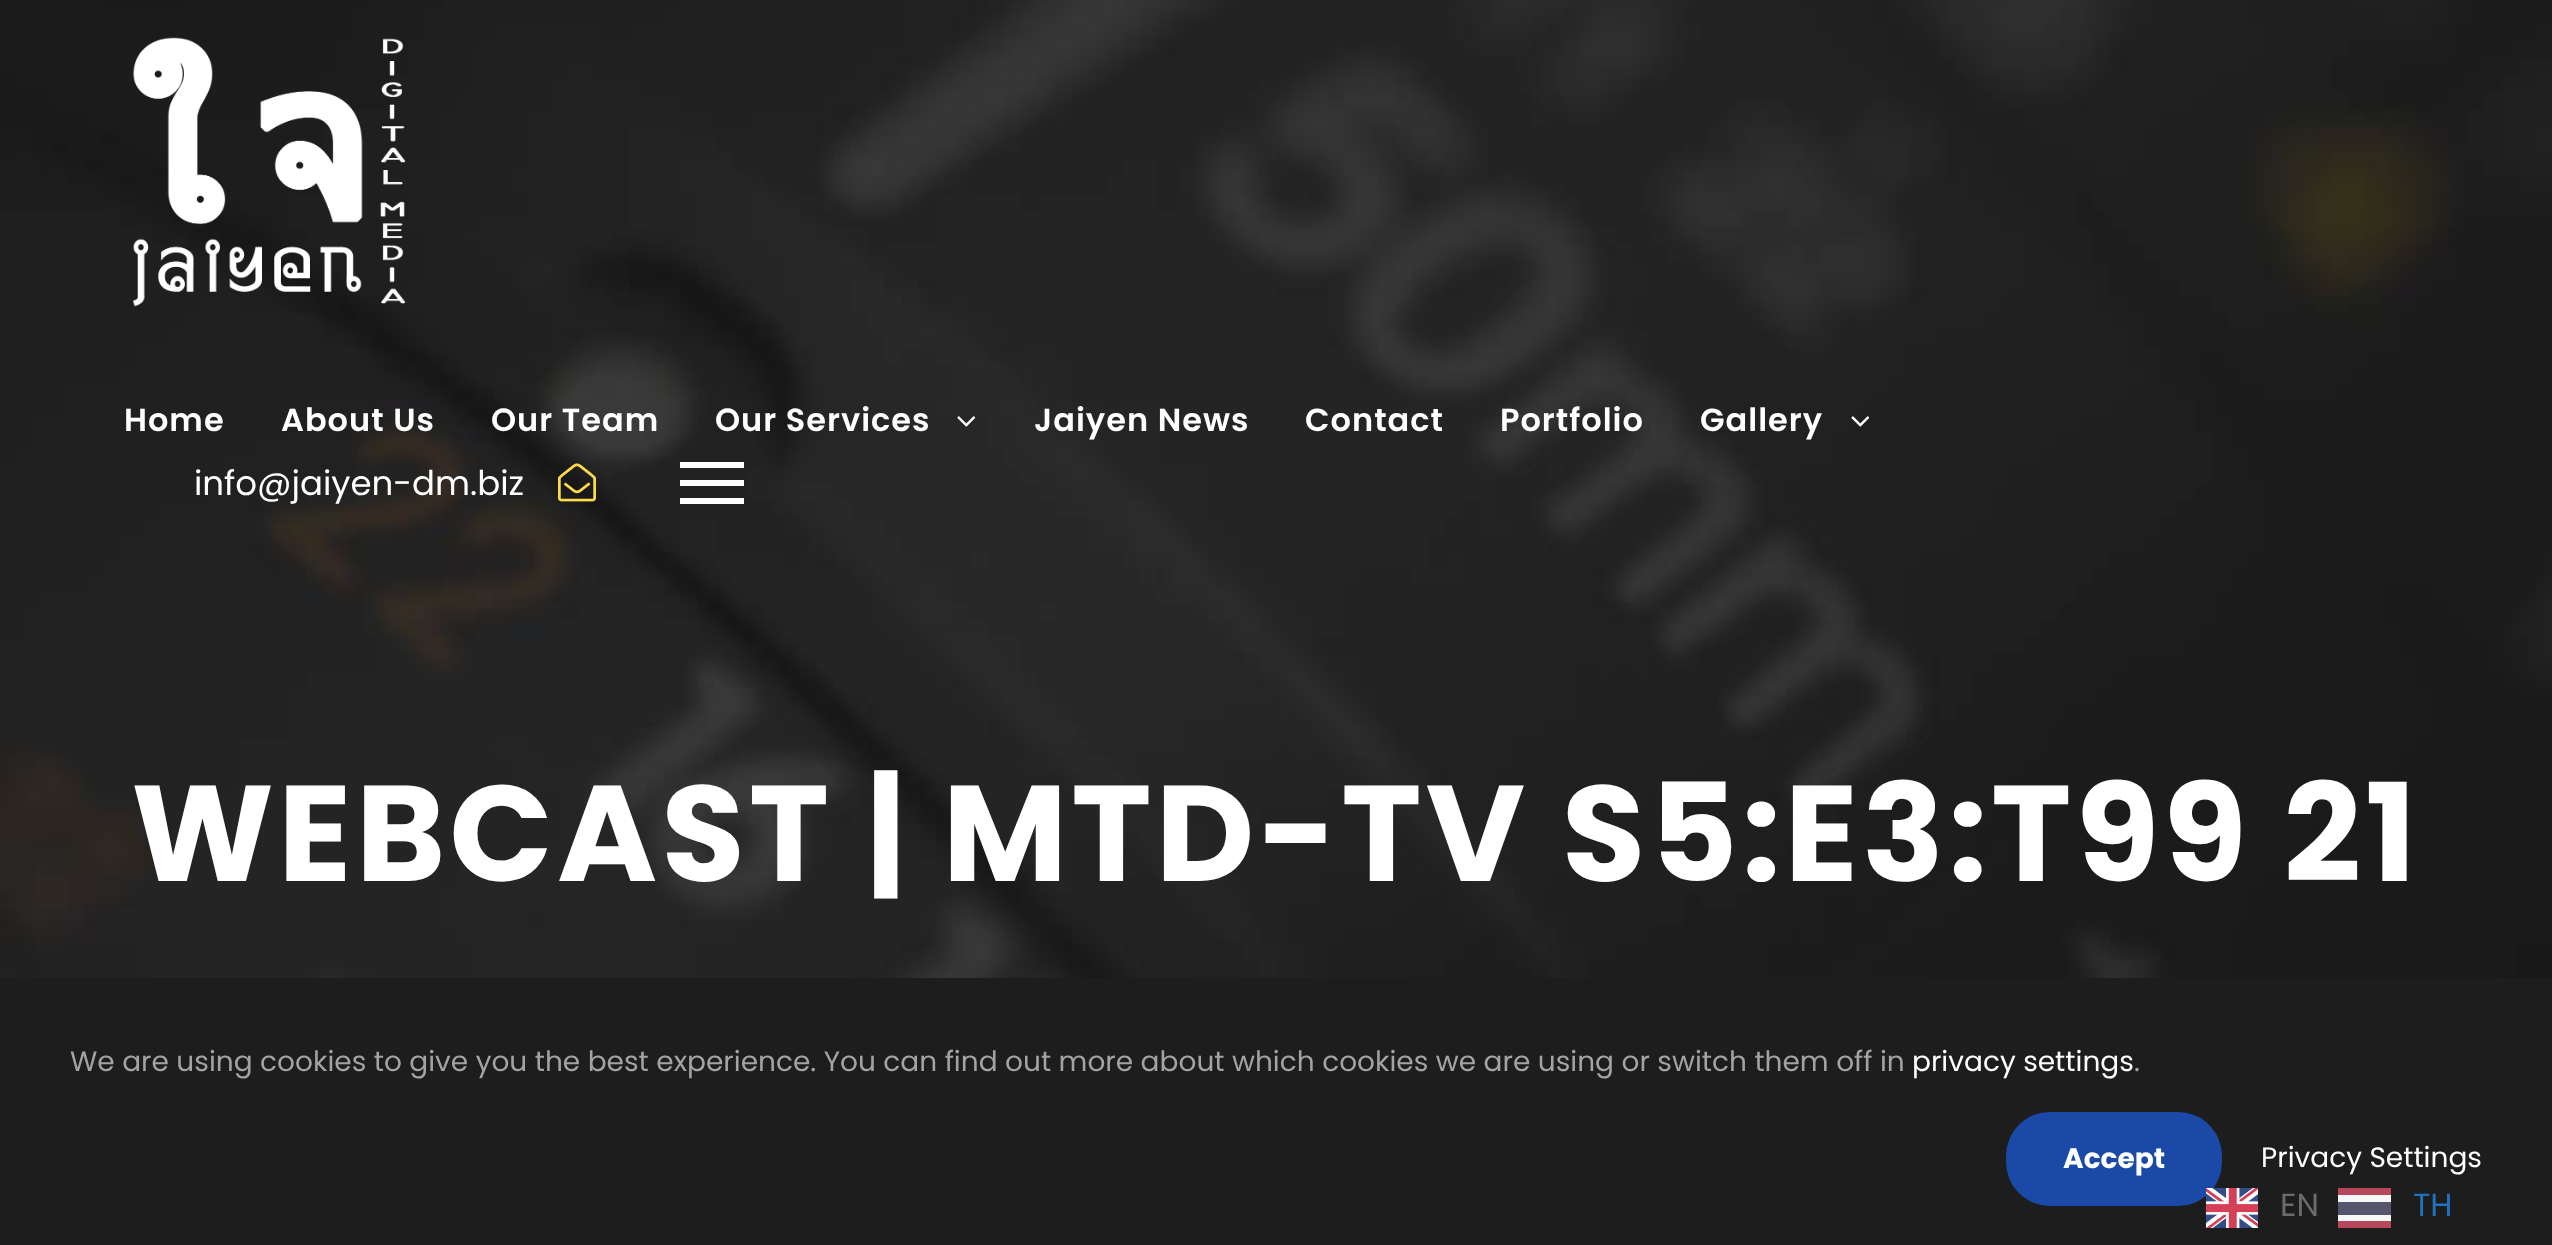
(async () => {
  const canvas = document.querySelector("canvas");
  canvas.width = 2552;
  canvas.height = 1245;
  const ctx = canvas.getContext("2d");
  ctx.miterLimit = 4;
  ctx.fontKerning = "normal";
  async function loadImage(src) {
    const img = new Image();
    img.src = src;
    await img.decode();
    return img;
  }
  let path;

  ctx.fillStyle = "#ffffff";
  ctx.fillRect(0, 0, 2552, 1245);
  ctx.drawImage(await loadImage("img/5.png"), 0, 0, 2552, 978);
  ctx.drawImage(await loadImage("img/1.png"), 132, 37, 274, 270);
  ctx.drawImage(await loadImage("img/2.png"), 957, 416, 19, 11);
  ctx.drawImage(await loadImage("img/3.png"), 1851, 416, 19, 11);
  ctx.drawImage(await loadImage("img/4.png"), 558, 463, 38, 39);
  for (const [x, y, w, h, color] of [
    [680, 462, 64, 6, "#ffffff"],
    [680, 480, 64, 6, "#ffffff"],
    [680, 498, 64, 6, "#ffffff"],
    [0, 978, 2552, 267, "#1d1d1d"],
  ]) {
    ctx.fillStyle = color;
    ctx.fillRect(x, y, w, h);
  }
  ctx.fillStyle = "#1a49a8";
  ctx.beginPath();
  ctx.roundRect(2006, 1112, 216, 94, 44);
  ctx.fill();
  ctx.drawImage(await loadImage("img/6.png"), 2206, 1188, 52, 40);
  ctx.fillStyle = "#f4f5f8";
  ctx.fillRect(2338, 1195, 53, 26);
  ctx.fillStyle = "#2d2a4a";
  ctx.fillRect(2338, 1202, 53, 13);
  ctx.fillStyle = "#a51931";
  path = new Path2D("M2338 1188H2391V1195H2338ZM2338 1221H2391V1228H2338Z");
  ctx.fill(path, "evenodd");
  ctx.fillStyle = "rgba(255, 255, 255, 0.2)";
  ctx.fillRect(2338, 1188, 53, 40);
  ctx.letterSpacing = "1px";
  ctx.font = "600 32px Poppins";
  ctx.fillStyle = "#ffffff";
  for (const [text, x, y] of [
    ["Home", 124, 431],
    ["About Us", 281, 431],
    ["Our Team", 491, 431],
    ["Our Services", 715, 431],
    ["Jaiyen News", 1034, 431],
    ["Contact", 1305, 431],
    ["Portfolio", 1500, 431],
    ["Gallery", 1700, 431],
  ]) {
    ctx.fillText(text, x, y);
  }
  ctx.letterSpacing = "0px";
  ctx.font = "34px Poppins";
  ctx.fillText("info@jaiyen-dm.biz", 194, 495);
  ctx.letterSpacing = "4px";
  ctx.font = "bold 136px Poppins";
  ctx.fillText("WEBCAST | MTD-TV S5:E3:T99 21", 131, 881);
  ctx.letterSpacing = "0px";
  ctx.font = "28px Poppins";
  ctx.fillStyle = "#a3a3a3";
  ctx.fillText("We are using cookies to give you the best experience. You can find out more about which cookies we are using or switch them off in", 70, 1071);
  ctx.fillStyle = "#ffffff";
  ctx.fillText("privacy settings", 1912, 1071);
  ctx.fillStyle = "#a3a3a3";
  ctx.fillText(".", 2134, 1071);
  ctx.font = "bold 28px Poppins";
  ctx.fillStyle = "#ffffff";
  ctx.fillText("Accept", 2063, 1168);
  ctx.font = "28px Poppins";
  ctx.fillText("Privacy Settings", 2261, 1167);
  ctx.font = "32px Poppins";
  ctx.fillStyle = "#6b6b6b";
  ctx.fillText("EN", 2280, 1216);
  ctx.fillStyle = "#1e73be";
  ctx.fillText("TH", 2413, 1216);
})();
